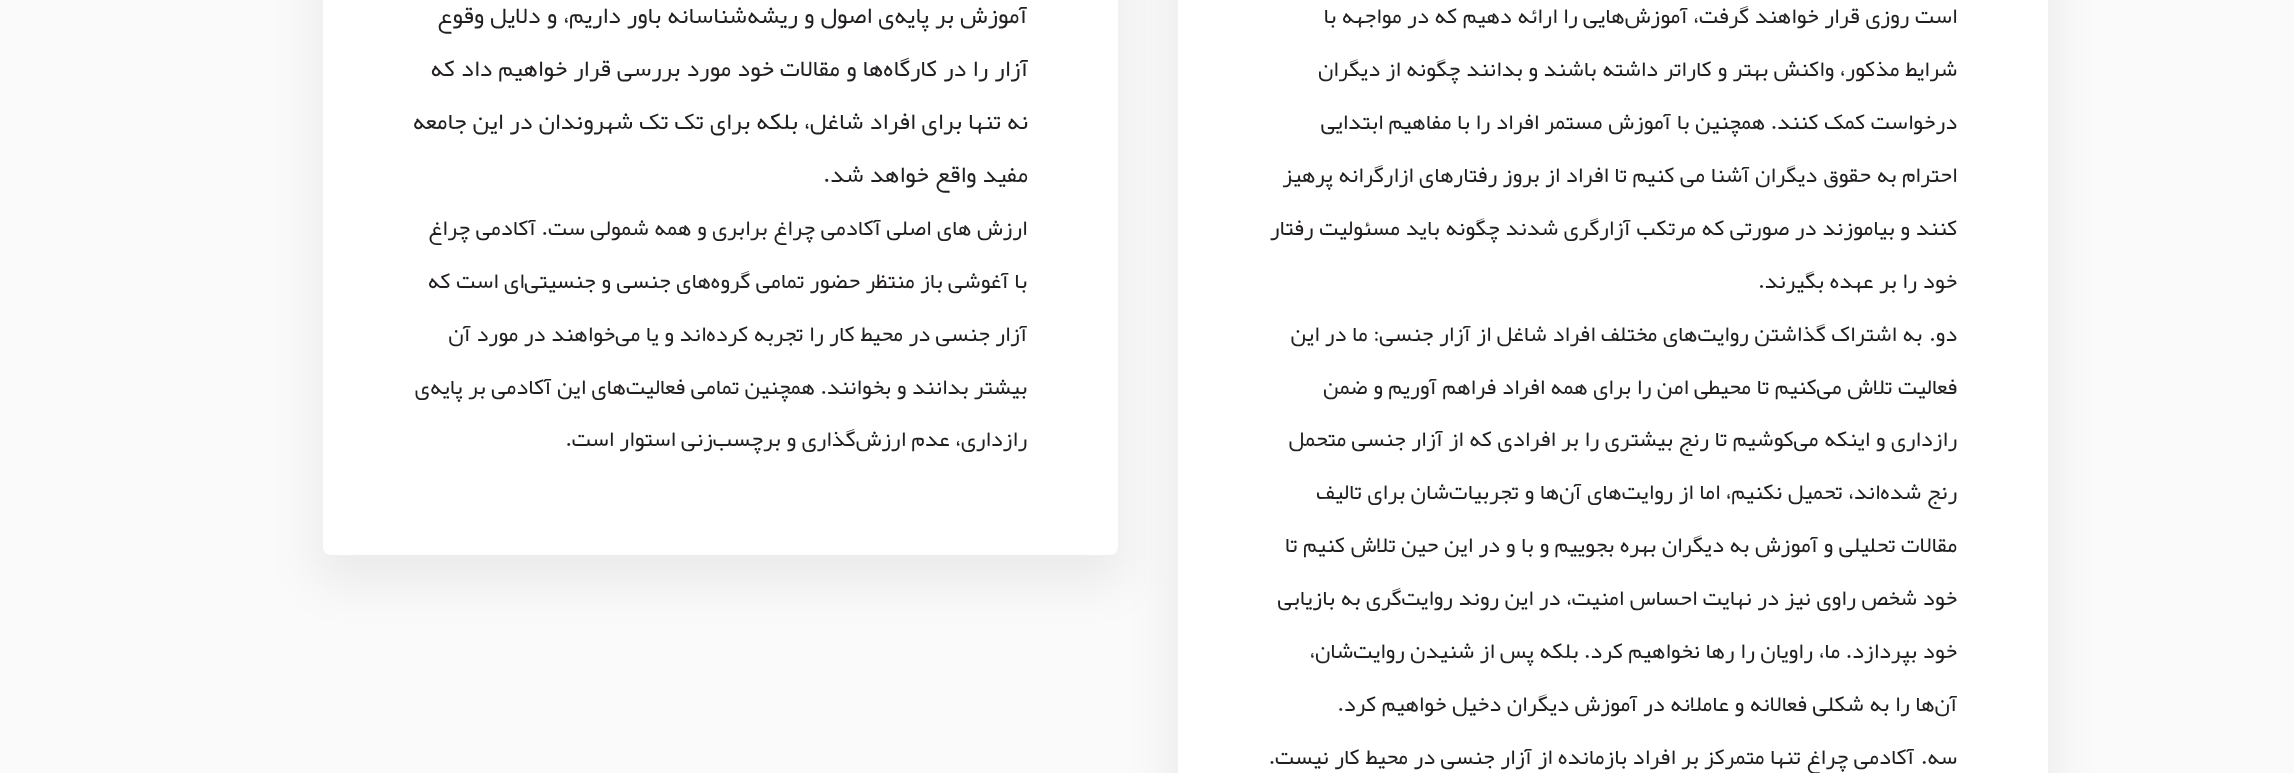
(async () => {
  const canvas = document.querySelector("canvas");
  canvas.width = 2294;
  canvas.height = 773;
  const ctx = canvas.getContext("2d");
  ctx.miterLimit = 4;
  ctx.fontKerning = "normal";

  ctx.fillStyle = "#fafafa";
  ctx.fillRect(0, 0, 2294, 773);
  ctx.fillStyle = "rgba(0, 0, 0, 0.06)";
  ctx.filter = "blur(22.5px)";
  ctx.beginPath();
  ctx.roundRect(1170, -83, 885, 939, 15);
  ctx.fill();
  ctx.filter = "none";
  ctx.fillStyle = "#ffffff";
  ctx.fillRect(1178, 0, 870, 773);
  ctx.fillStyle = "rgba(0, 0, 0, 0.06)";
  ctx.filter = "blur(22.5px)";
  ctx.beginPath();
  ctx.roundRect(315, -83, 810, 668, 15);
  ctx.fill();
  ctx.filter = "none";
  ctx.fillStyle = "#ffffff";
  ctx.beginPath();
  ctx.roundRect(323, -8, 795, 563, 8);
  ctx.fill();
  ctx.wordSpacing = "1.75px";
  ctx.direction = "rtl";
  ctx.font = "22.5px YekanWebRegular";
  ctx.fillStyle = "#231f20";
  for (const [text, x, y] of [
    ["است روزی قرار خواهند گرفت، آموزش‌هایی را ارائه دهیم که در مواجهه با", 1957, 23],
    ["شرایط مذکور، واکنش بهتر و کاراتر داشته باشند و بدانند چگونه از دیگران", 1957, 76],
    ["درخواست کمک کنند. همچنین با آموزش مستمر افراد را با مفاهیم ابتدایی", 1957, 129],
    ["احترام به حقوق دیگران آشنا می کنیم تا افراد از بروز رفتارهای ازارگرانه پرهیز", 1957, 182],
    ["کنند و بیاموزند در صورتی که مرتکب آزارگری شدند چگونه باید مسئولیت رفتار", 1957, 235],
    ["خود را بر عهده بگیرند.", 1957, 288],
  ]) {
    ctx.fillText(text, x, y);
  }
  ctx.wordSpacing = "0px";
  ctx.fillText("دو.", 1957, 341);
  ctx.wordSpacing = "1.7px";
  ctx.fillText("به اشتراک گذاشتن روایت‌های مختلف افراد شاغل از آزار جنسی: ما در این", 1922, 341);
  ctx.wordSpacing = "1.75px";
  for (const [text, x, y] of [
    ["فعالیت تلاش می‌کنیم تا محیطی امن را برای همه افراد فراهم آوریم و ضمن", 1957, 394],
    ["رازداری و اینکه می‌کوشیم تا رنج بیشتری را بر افرادی که از آزار جنسی متحمل", 1957, 446],
    ["رنج شده‌اند، تحمیل نکنیم، اما از روایت‌های آن‌ها و تجربیات‌شان برای تالیف", 1957, 499],
    ["مقالات تحلیلی و آموزش به دیگران بهره بجوییم و با و در این حین تلاش کنیم تا", 1957, 552],
    ["خود شخص راوی نیز در نهایت احساس امنیت، در این روند روایت‌گری به بازیابی", 1957, 605],
    ["خود بپردازد. ما، راویان را رها نخواهیم کرد. بلکه پس از شنیدن روایت‌شان،", 1957, 658],
    ["آن‌ها را به شکلی فعالانه و عاملانه در آموزش دیگران دخیل خواهیم کرد.", 1957, 711],
  ]) {
    ctx.fillText(text, x, y);
  }
  ctx.wordSpacing = "0px";
  ctx.fillText("سه.", 1957, 764);
  ctx.wordSpacing = "1.7px";
  ctx.fillText("آکادمی چراغ تنها متمرکز بر افراد بازمانده از آزار جنسی در محیط کار نیست.", 1914, 764);
  ctx.wordSpacing = "2px";
  ctx.font = "24px YekanWebRegular";
  for (const [text, x, y] of [
    ["آموزش بر پایه‌ی اصول و ریشه‌شناسانه باور داریم، و دلایل وقوع", 1027, 23],
    ["آزار را در کارگاه‌ها و مقالات خود مورد بررسی قرار خواهیم داد که", 1028, 76],
    ["نه تنها برای افراد شاغل، بلکه برای تک تک شهروندان در این جامعه", 1028, 129],
    ["مفید واقع خواهد شد.", 1028, 182],
  ]) {
    ctx.fillText(text, x, y);
  }
  ctx.wordSpacing = "1.75px";
  ctx.font = "22.5px YekanWebRegular";
  for (const [text, x, y] of [
    ["ارزش های اصلی آکادمی چراغ برابری و همه شمولی ست. آکادمی چراغ", 1027, 235],
    ["با آغوشی باز منتظر حضور تمامی گروه‌های جنسی و جنسیتی‌ای است که", 1027, 288],
    ["آزار جنسی در محیط کار را تجربه کرده‌اند و یا می‌خواهند در مورد آن", 1027, 341],
    ["بیشتر بدانند و بخوانند. همچنین تمامی فعالیت‌های این آکادمی بر پایه‌ی", 1027, 394],
    ["رازداری، عدم ارزش‌گذاری و برچسب‌زنی استوار است.", 1027, 446],
  ]) {
    ctx.fillText(text, x, y);
  }
})();
